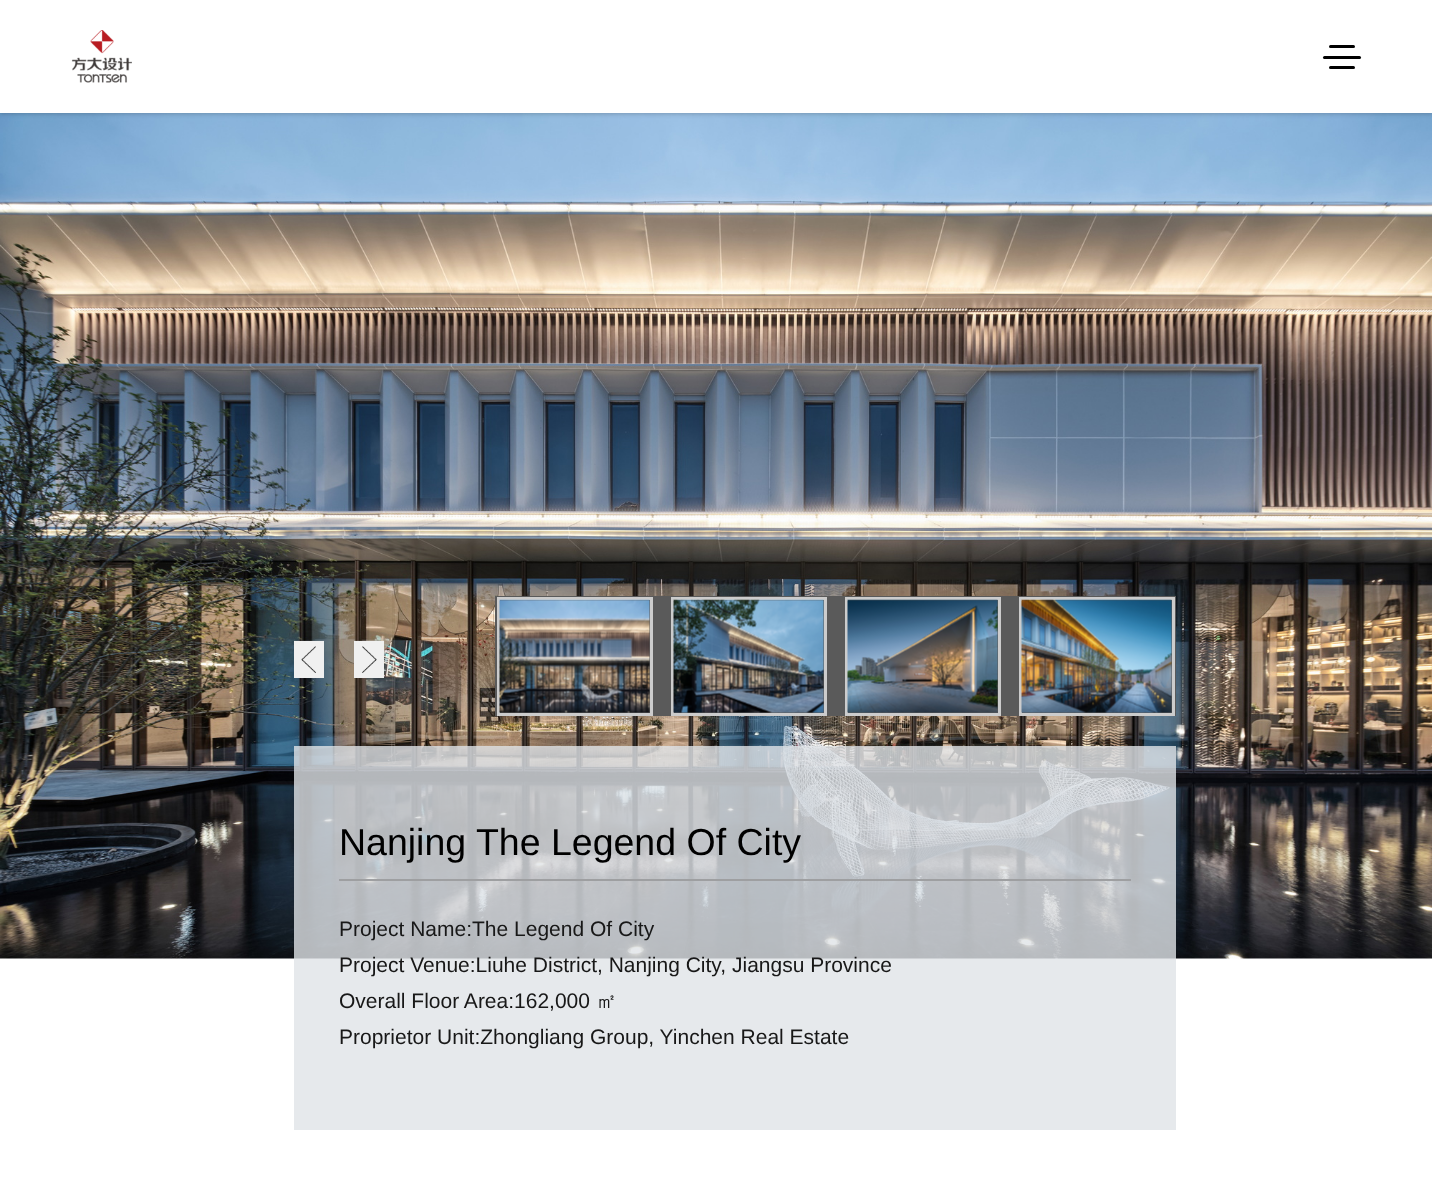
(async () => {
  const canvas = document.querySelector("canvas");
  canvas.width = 1432;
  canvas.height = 1189;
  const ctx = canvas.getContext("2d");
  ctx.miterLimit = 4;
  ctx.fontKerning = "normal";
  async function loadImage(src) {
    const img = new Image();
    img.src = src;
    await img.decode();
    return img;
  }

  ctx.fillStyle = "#ffffff";
  ctx.fillRect(0, 0, 1432, 1189);
  ctx.drawImage(await loadImage("img/2.png"), 0, 113, 1432, 846);
  ctx.fillStyle = "rgba(0, 0, 0, 0.2)";
  ctx.filter = "blur(2px)";
  ctx.beginPath();
  ctx.rect(0, 2, 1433, 112);
  ctx.fill();
  ctx.filter = "none";
  ctx.fillStyle = "#ffffff";
  ctx.fillRect(0, 0, 1432, 113);
  ctx.drawImage(await loadImage("img/1.png"), 71, 30, 61, 53);
  ctx.fillStyle = "#000000";
  ctx.beginPath();
  ctx.roundRect(1329, 45, 26, 3, 1.5);
  ctx.fill();
  ctx.beginPath();
  ctx.roundRect(1323, 56, 38, 3, 1.5);
  ctx.fill();
  ctx.beginPath();
  ctx.roundRect(1329, 66, 26, 3, 1.5);
  ctx.fill();
  ctx.fillStyle = "#ffffff";
  ctx.fillRect(294, 641, 30, 37);
  ctx.drawImage(await loadImage("img/3.png"), 294, 640, 30, 38);
  ctx.fillRect(354, 641, 30, 37);
  ctx.drawImage(await loadImage("img/4.png"), 354, 640, 30, 38);
  ctx.fillStyle = "#5a5a5a";
  ctx.fillRect(495, 596, 681, 120);
  ctx.strokeStyle = "#cccccc";
  ctx.lineWidth = 3;
  ctx.strokeRect(498.5, 598.5, 153, 116);
  ctx.drawImage(await loadImage("img/5.png"), 499, 599, 151, 114);
  ctx.strokeRect(672.5, 598.5, 153, 116);
  ctx.drawImage(await loadImage("img/6.png"), 673, 599, 151, 114);
  ctx.strokeRect(846.5, 598.5, 153, 116);
  ctx.drawImage(await loadImage("img/7.png"), 847, 599, 151, 114);
  ctx.strokeRect(1020.5, 598.5, 153, 116);
  ctx.drawImage(await loadImage("img/8.png"), 1021, 599, 151, 114);
  ctx.fillStyle = "rgba(224, 228, 231, 0.8)";
  ctx.fillRect(294, 746, 882, 384);
  ctx.fillStyle = "#9e9fa1";
  ctx.fillRect(339, 879, 792, 2);
  ctx.font = "37.5px Liberation Sans";
  ctx.fillStyle = "#000000";
  ctx.fillText("Nanjing The Legend Of City", 339, 855);
  ctx.font = "21px Liberation Sans";
  ctx.fillStyle = "#181818";
  for (const [text, x, y] of [
    ["Project Name:The Legend Of City", 339, 936],
    ["Project Venue:Liuhe District, Nanjing City, Jiangsu Province", 339, 972],
    ["Overall Floor Area:162,000", 339, 1008],
  ]) {
    ctx.fillText(text, x, y);
  }
  ctx.font = "500 21px WenQuanYi Zen Hei";
  ctx.fillText("㎡", 596, 1008);
  ctx.font = "21px Liberation Sans";
  ctx.fillText("Proprietor Unit:Zhongliang Group, Yinchen Real Estate", 339, 1044);
})();
